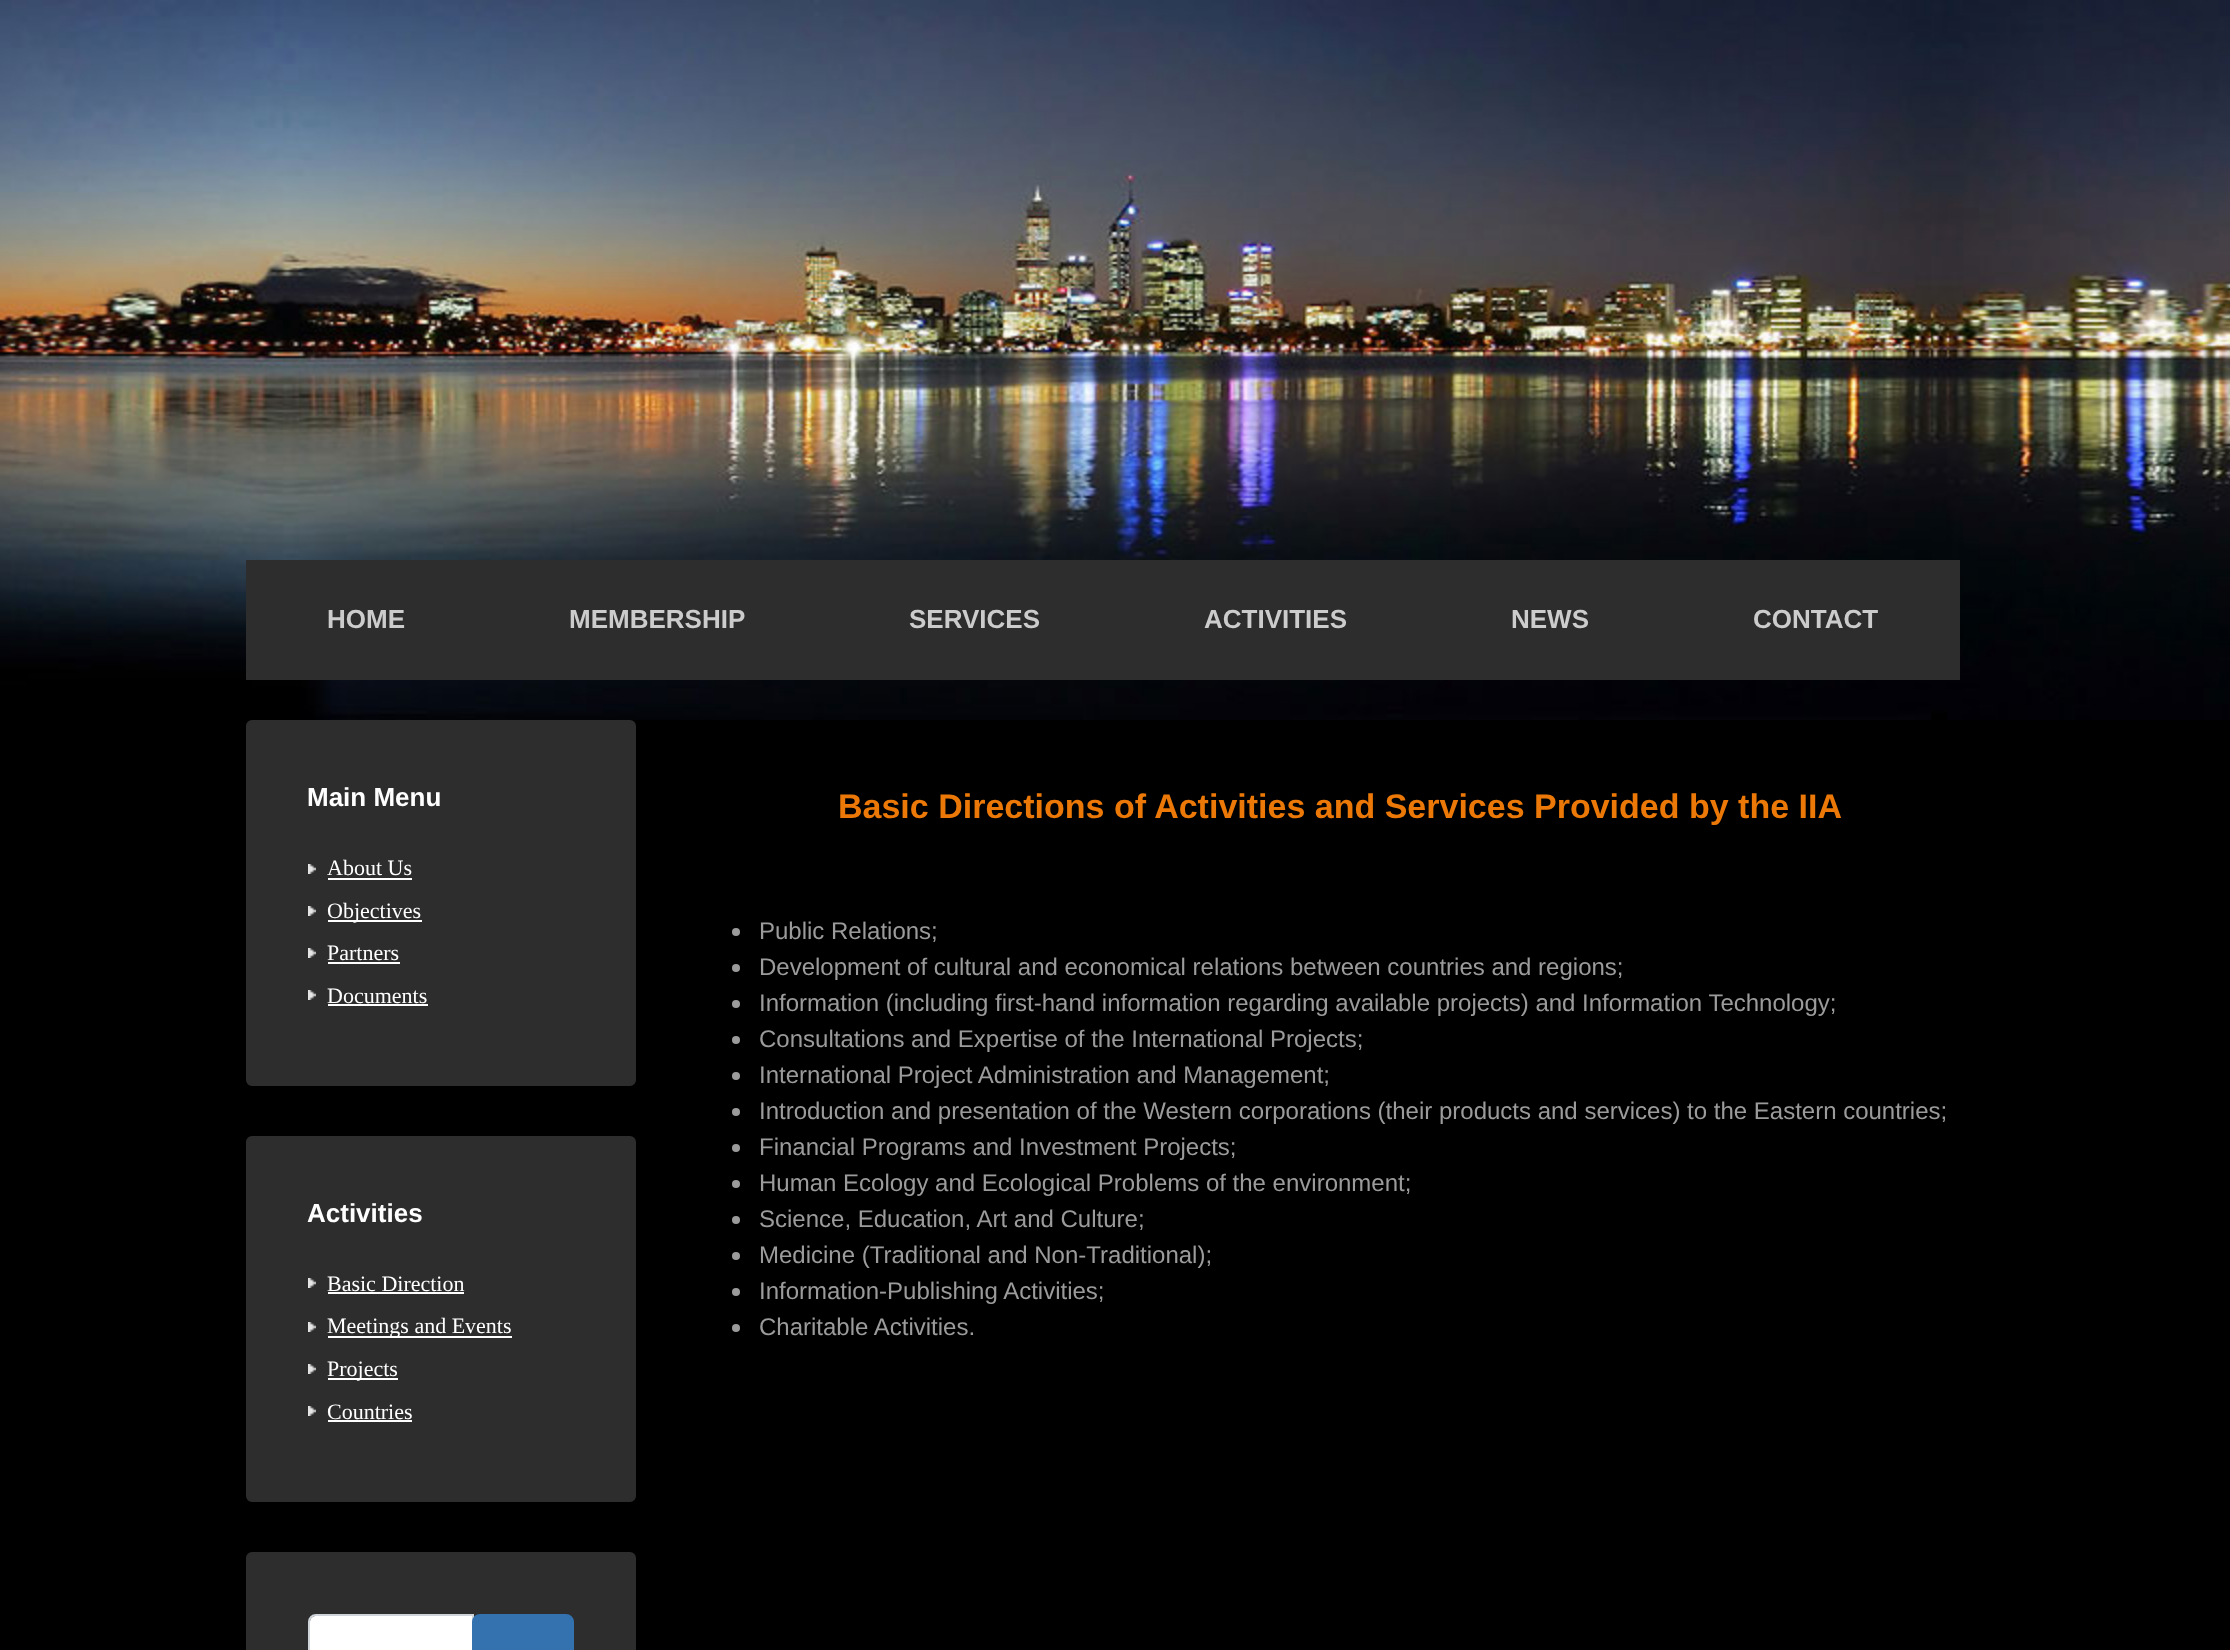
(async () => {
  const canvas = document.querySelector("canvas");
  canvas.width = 2230;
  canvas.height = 1650;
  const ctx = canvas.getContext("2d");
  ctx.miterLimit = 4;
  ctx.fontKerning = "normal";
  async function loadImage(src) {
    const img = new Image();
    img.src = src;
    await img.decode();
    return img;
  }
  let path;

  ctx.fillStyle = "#ffffff";
  ctx.fillRect(0, 0, 2230, 1650);
  ctx.drawImage(await loadImage("img/1.png"), 0, 0, 2230, 720);
  ctx.fillStyle = "#2d2d2d";
  ctx.fillRect(246, 560, 1714, 120);
  ctx.fillStyle = "#000000";
  ctx.fillRect(0, 720, 2230, 930);
  ctx.fillStyle = "#2d2d2d";
  ctx.beginPath();
  ctx.roundRect(247, 721, 388, 364, 5);
  ctx.fill();
  ctx.strokeStyle = "#2d2d2d";
  ctx.lineWidth = 2;
  ctx.stroke();
  ctx.drawImage(await loadImage("img/2.png"), 308, 864, 8, 10);
  ctx.fillStyle = "#ffffff";
  ctx.fillRect(328, 878, 84, 2);
  ctx.drawImage(await loadImage("img/2.png"), 308, 906, 8, 10);
  ctx.fillRect(328, 920, 94, 2);
  ctx.drawImage(await loadImage("img/2.png"), 308, 948, 8, 10);
  ctx.fillRect(328, 962, 72, 2);
  ctx.drawImage(await loadImage("img/2.png"), 308, 990, 8, 10);
  ctx.fillRect(328, 1004, 100, 2);
  ctx.fillStyle = "#2d2d2d";
  ctx.beginPath();
  ctx.roundRect(247, 1137, 388, 364, 5);
  ctx.fill();
  ctx.stroke();
  ctx.drawImage(await loadImage("img/2.png"), 308, 1278, 8, 10);
  ctx.fillStyle = "#ffffff";
  ctx.fillRect(328, 1292, 136, 2);
  ctx.drawImage(await loadImage("img/2.png"), 308, 1322, 8, 10);
  ctx.fillRect(328, 1336, 184, 2);
  ctx.drawImage(await loadImage("img/2.png"), 308, 1364, 8, 10);
  ctx.fillRect(328, 1378, 70, 2);
  ctx.drawImage(await loadImage("img/2.png"), 308, 1406, 8, 10);
  ctx.fillRect(328, 1420, 84, 2);
  ctx.fillStyle = "#2d2d2d";
  ctx.beginPath();
  ctx.roundRect(247, 1553, 388, 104, 5);
  ctx.fill();
  ctx.stroke();
  ctx.fillStyle = "#ffffff";
  path = new Path2D("M316 1616H472V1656H316C312.5 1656 310 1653.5 310 1650V1622C310 1618.5 312.5 1616 316 1616Z");
  ctx.fill(path);
  path = new Path2D("M316 1615H473V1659H316C312 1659 309 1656 309 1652V1622C309 1618 312 1615 316 1615Z");
  ctx.strokeStyle = "#ced4da";
  ctx.stroke(path);
  ctx.fillStyle = "#3372af";
  ctx.beginPath();
  ctx.roundRect(473, 1615, 100, 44, 7);
  ctx.fill();
  ctx.strokeStyle = "#3372af";
  ctx.stroke();
  ctx.fillStyle = "#9b9b9b";
  ctx.beginPath();
  ctx.arc(736, 932, 4, 0, Math.PI * 2);
  ctx.fill();
  ctx.beginPath();
  ctx.arc(736, 968, 4, 0, Math.PI * 2);
  ctx.fill();
  ctx.beginPath();
  ctx.arc(736, 1004, 4, 0, Math.PI * 2);
  ctx.fill();
  ctx.beginPath();
  ctx.arc(736, 1040, 4, 0, Math.PI * 2);
  ctx.fill();
  ctx.beginPath();
  ctx.arc(736, 1076, 4, 0, Math.PI * 2);
  ctx.fill();
  ctx.beginPath();
  ctx.arc(736, 1112, 4, 0, Math.PI * 2);
  ctx.fill();
  ctx.beginPath();
  ctx.arc(736, 1148, 4, 0, Math.PI * 2);
  ctx.fill();
  ctx.beginPath();
  ctx.arc(736, 1184, 4, 0, Math.PI * 2);
  ctx.fill();
  ctx.beginPath();
  ctx.arc(736, 1220, 4, 0, Math.PI * 2);
  ctx.fill();
  ctx.beginPath();
  ctx.arc(736, 1256, 4, 0, Math.PI * 2);
  ctx.fill();
  ctx.beginPath();
  ctx.arc(736, 1292, 4, 0, Math.PI * 2);
  ctx.fill();
  ctx.beginPath();
  ctx.arc(736, 1328, 4, 0, Math.PI * 2);
  ctx.fill();
  ctx.font = "bold 26px Liberation Sans";
  ctx.fillStyle = "#cccccc";
  for (const [text, x, y] of [
    ["HOME", 327, 628],
    ["MEMBERSHIP", 569, 628],
    ["SERVICES", 909, 628],
    ["ACTIVITIES", 1204, 628],
    ["NEWS", 1511, 628],
    ["CONTACT", 1753, 628],
  ]) {
    ctx.fillText(text, x, y);
  }
  ctx.fillStyle = "#ffffff";
  ctx.fillText("Main Menu", 307, 806);
  ctx.font = "22px Liberation Serif";
  for (const [text, x, y] of [
    ["About Us", 327, 875],
    ["Objectives", 327, 918],
    ["Partners", 327, 960],
    ["Documents", 327, 1003],
  ]) {
    ctx.fillText(text, x, y);
  }
  ctx.font = "bold 26px Liberation Sans";
  ctx.fillText("Activities", 307, 1222);
  ctx.font = "22px Liberation Serif";
  for (const [text, x, y] of [
    ["Basic Direction", 327, 1291],
    ["Meetings and Events", 327, 1333],
    ["Projects", 327, 1376],
    ["Countries", 327, 1419],
  ]) {
    ctx.fillText(text, x, y);
  }
  ctx.font = "bold 34px Liberation Sans";
  ctx.fillStyle = "#eb7807";
  ctx.fillText("Basic Directions of Activities and Services Provided by the IIA", 838, 818);
  ctx.font = "24px Liberation Sans";
  ctx.fillStyle = "#9b9b9b";
  for (const [text, x, y] of [
    ["Public Relations;", 759, 939],
    ["Development of cultural and economical relations between countries and regions;", 759, 975],
    ["Information (including first-hand information regarding available projects) and Information Technology;", 759, 1011],
    ["Consultations and Expertise of the International Projects;", 759, 1047],
    ["International Project Administration and Management;", 759, 1083],
    ["Introduction and presentation of the Western corporations (their products and services) to the Eastern countries;", 759, 1119],
    ["Financial Programs and Investment Projects;", 759, 1155],
    ["Human Ecology and Ecological Problems of the environment;", 759, 1191],
    ["Science, Education, Art and Culture;", 759, 1227],
    ["Medicine (Traditional and Non-Traditional);", 759, 1263],
    ["Information-Publishing Activities;", 759, 1299],
    ["Charitable Activities.", 759, 1335],
  ]) {
    ctx.fillText(text, x, y);
  }
})();
